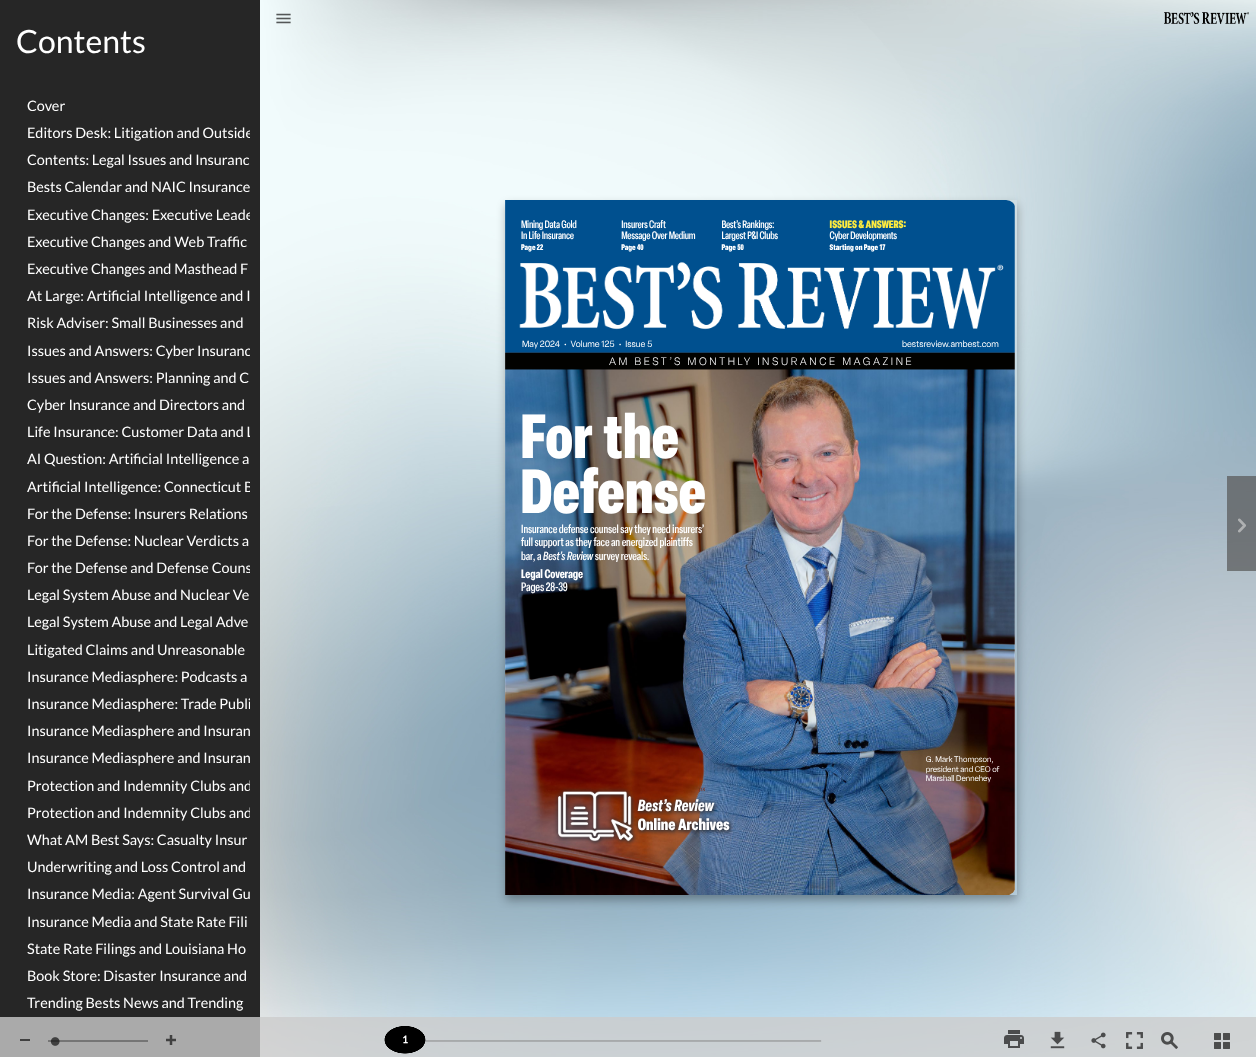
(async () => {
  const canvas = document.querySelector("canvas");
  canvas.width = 1256;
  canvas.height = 1057;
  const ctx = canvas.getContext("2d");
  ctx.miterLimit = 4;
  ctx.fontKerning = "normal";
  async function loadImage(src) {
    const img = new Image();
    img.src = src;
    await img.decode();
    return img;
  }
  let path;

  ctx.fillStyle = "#ffffff";
  ctx.fillRect(0, 0, 1256, 1057);
  ctx.drawImage(await loadImage("img/3.png"), 260, 0, 996, 1057);
  ctx.drawImage(await loadImage("img/1.png"), 1164, 12, 85, 12);
  ctx.fillStyle = "#262626";
  ctx.fillRect(0, 0, 260, 1057);
  ctx.drawImage(await loadImage("img/2.png"), 276, 13, 15, 11);
  ctx.fillStyle = "rgba(85, 85, 85, 0.7)";
  ctx.fillRect(1227, 476, 29, 95);
  ctx.drawImage(await loadImage("img/4.png"), 1238, 518, 8, 15);
  ctx.save();
  path = new Path2D("M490 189H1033V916H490ZM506 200H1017V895H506Z");
  ctx.clip(path, "evenodd");
  ctx.fillStyle = "rgba(0, 0, 0, 0.3)";
  ctx.filter = "blur(5px)";
  ctx.beginPath();
  ctx.rect(506, 205, 511, 695);
  ctx.fill();
  ctx.filter = "none";
  ctx.restore();
  ctx.save();
  ctx.beginPath();
  ctx.rect(0, 200, 1015, 695);
  ctx.clip();
  ctx.fillStyle = "#ffffff";
  ctx.beginPath();
  ctx.roundRect(505, 200, 511, 695, [0, 10, 10, 0]);
  ctx.fill();
  ctx.restore();
  ctx.drawImage(await loadImage("img/5.png"), 505, 200, 510, 695);
  ctx.drawImage(await loadImage("img/6.png"), 521, 220, 479, 611);
  ctx.fillStyle = "rgba(204, 204, 204, 0.8)";
  ctx.fillRect(0, 1017, 1256, 40);
  ctx.fillStyle = "#404040";
  ctx.fillRect(20, 1039, 10, 2);
  path = new Path2D("M48 1041H148");
  ctx.strokeStyle = "#404040";
  ctx.stroke(path);
  ctx.drawImage(await loadImage("img/7.png"), 50, 1037, 10, 9);
  ctx.drawImage(await loadImage("img/8.png"), 166, 1035, 10, 10);
  ctx.drawImage(await loadImage("img/9.png"), 384, 1026, 438, 28);
  ctx.drawImage(await loadImage("img/10.png"), 1004, 1030, 20, 18);
  ctx.drawImage(await loadImage("img/11.png"), 1050, 1031, 15, 18);
  ctx.drawImage(await loadImage("img/12.png"), 1091, 1032, 15, 17);
  ctx.drawImage(await loadImage("img/13.png"), 1126, 1032, 17, 17);
  ctx.drawImage(await loadImage("img/14.png"), 1161, 1032, 17, 17);
  ctx.drawImage(await loadImage("img/15.png"), 1214, 1033, 16, 16);
  ctx.font = "32px Lato";
  ctx.fillStyle = "#ffffff";
  ctx.fillText("Contents", 16, 53);
  ctx.font = "14.4px Lato";
  ctx.fillText("Cover", 27, 111);
  ctx.save();
  ctx.beginPath();
  ctx.rect(15, 109, 235, 48);
  ctx.clip();
  ctx.fillText("Editors Desk: Litigation and Outside", 27, 138);
  ctx.restore();
  ctx.fillText("Contents: Legal Issues and Insuranc", 27, 165);
  ctx.fillText("Bests Calendar and NAIC Insurance", 27, 192);
  ctx.save();
  ctx.beginPath();
  ctx.rect(15, 191, 235, 48);
  ctx.clip();
  ctx.fillText("Executive Changes: Executive Leade", 27, 220);
  ctx.restore();
  for (const [text, x, y] of [
    ["Executive Changes and Web Traffic", 27, 247],
    ["Executive Changes and Masthead F", 27, 274],
    ["At Large: Artificial Intelligence and I", 27, 301],
    ["Risk Adviser: Small Businesses and", 27, 328],
  ]) {
    ctx.fillText(text, x, y);
  }
  ctx.save();
  ctx.beginPath();
  ctx.rect(15, 327, 235, 48);
  ctx.clip();
  ctx.fillText("Issues and Answers: Cyber Insuranc", 27, 356);
  ctx.restore();
  ctx.fillText("Issues and Answers: Planning and C", 27, 383);
  ctx.fillText("Cyber Insurance and Directors and", 27, 410);
  ctx.save();
  ctx.beginPath();
  ctx.rect(15, 408, 235, 48);
  ctx.clip();
  ctx.fillText("Life Insurance: Customer Data and L", 27, 437);
  ctx.restore();
  ctx.fillText("AI Question: Artificial Intelligence a", 27, 464);
  ctx.save();
  ctx.beginPath();
  ctx.rect(15, 463, 235, 48);
  ctx.clip();
  ctx.fillText("Artificial Intelligence: Connecticut B", 27, 492);
  ctx.restore();
  ctx.fillText("For the Defense: Insurers Relations", 27, 519);
  ctx.fillText("For the Defense: Nuclear Verdicts a", 27, 546);
  ctx.save();
  ctx.beginPath();
  ctx.rect(15, 544, 235, 48);
  ctx.clip();
  ctx.fillText("For the Defense and Defense Couns", 27, 573);
  ctx.restore();
  for (const [text, x, y] of [
    ["Legal System Abuse and Nuclear Ve", 27, 600],
    ["Legal System Abuse and Legal Adve", 27, 627],
    ["Litigated Claims and Unreasonable", 27, 655],
    ["Insurance Mediasphere: Podcasts a", 27, 682],
  ]) {
    ctx.fillText(text, x, y);
  }
  ctx.save();
  ctx.beginPath();
  ctx.rect(15, 680, 235, 48);
  ctx.clip();
  ctx.fillText("Insurance Mediasphere: Trade Publi", 27, 709);
  ctx.restore();
  ctx.fillText("Insurance Mediasphere and Insuran", 27, 736);
  ctx.fillText("Insurance Mediasphere and Insuran", 27, 763);
  ctx.save();
  ctx.beginPath();
  ctx.rect(15, 762, 235, 48);
  ctx.clip();
  ctx.fillText("Protection and Indemnity Clubs and", 27, 791);
  ctx.restore();
  ctx.save();
  ctx.beginPath();
  ctx.rect(15, 789, 235, 48);
  ctx.clip();
  ctx.fillText("Protection and Indemnity Clubs and", 27, 818);
  ctx.restore();
  for (const [text, x, y] of [
    ["What AM Best Says: Casualty Insur", 27, 845],
    ["Underwriting and Loss Control and", 27, 872],
    ["Insurance Media: Agent Survival Gu", 27, 899],
    ["Insurance Media and State Rate Fili", 27, 927],
    ["State Rate Filings and Louisiana Ho", 27, 954],
    ["Book Store: Disaster Insurance and", 27, 981],
    ["Trending Bests News and Trending", 27, 1008],
  ]) {
    ctx.fillText(text, x, y);
  }
  ctx.font = "6px Liberation Sans";
  ctx.fillStyle = "#772610";
  ctx.fillText("px", 699, 791);
})();
